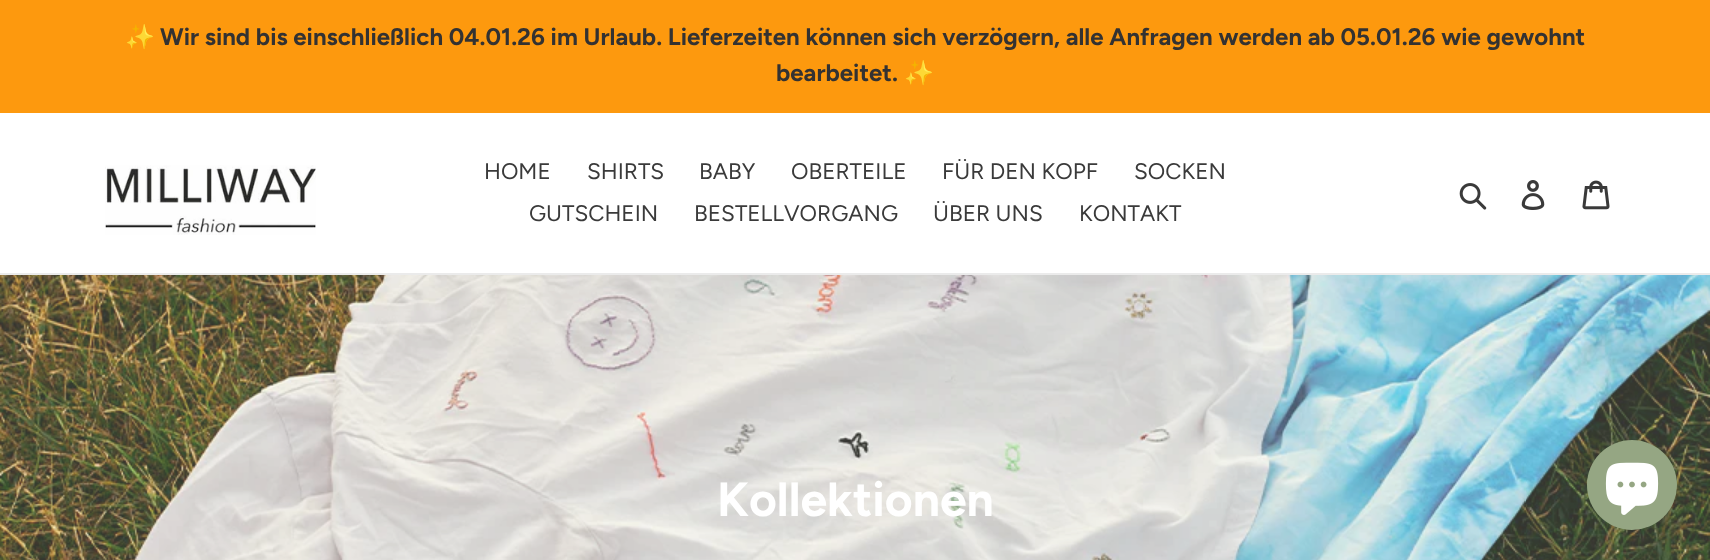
(async () => {
  const canvas = document.querySelector("canvas");
  canvas.width = 1710;
  canvas.height = 560;
  const ctx = canvas.getContext("2d");
  ctx.miterLimit = 4;
  ctx.fontKerning = "none";
  async function loadImage(src) {
    const img = new Image();
    img.src = src;
    await img.decode();
    return img;
  }

  ctx.fillStyle = "#ffffff";
  ctx.fillRect(0, 0, 1710, 560);
  ctx.fillStyle = "#fd990e";
  ctx.fillRect(0, 0, 1710, 113);
  ctx.fillStyle = "#ebebeb";
  ctx.fillRect(0, 273, 1710, 2);
  ctx.drawImage(await loadImage("img/1.png"), 105, 165, 211, 70);
  ctx.drawImage(await loadImage("img/2.png"), 1459, 183, 28, 27);
  ctx.drawImage(await loadImage("img/3.png"), 1521, 180, 24, 30);
  ctx.drawImage(await loadImage("img/4.png"), 1582, 180, 28, 30);
  ctx.drawImage(await loadImage("img/5.png"), 0, 275, 1710, 285);
  ctx.fillStyle = "#95a683";
  ctx.beginPath();
  ctx.arc(1632, 485, 45, 0, Math.PI * 2);
  ctx.fill();
  ctx.drawImage(await loadImage("img/6.png"), 1605, 462, 54, 53);
  ctx.font = "bold 24px Noto Color Emoji";
  ctx.fillStyle = "#333232";
  ctx.fillText("✨", 125, 45);
  ctx.font = "bold 24px Figtree";
  ctx.fillText("Wir sind bis einschließlich 04.01.26 im Urlaub. Lieferzeiten können sich verzögern, alle Anfragen werden ab 05.01.26 wie gewohnt", 160, 45);
  ctx.fillText("bearbeitet.", 776, 81);
  ctx.font = "bold 24px Noto Color Emoji";
  ctx.fillText("✨", 904, 81);
  ctx.font = "22.5px Figtree";
  ctx.fillStyle = "#3a3a3a";
  for (const [text, x, y] of [
    ["HOME", 484, 179],
    ["SHIRTS", 587, 179],
    ["BABY", 699, 179],
    ["OBERTEILE", 791, 179],
    ["FÜR DEN KOPF", 942, 179],
    ["SOCKEN", 1134, 179],
    ["GUTSCHEIN", 529, 221],
    ["BESTELLVORGANG", 694, 221],
    ["ÜBER UNS", 933, 221],
    ["KONTAKT", 1079, 221],
  ]) {
    ctx.fillText(text, x, y);
  }
  ctx.font = "bold 48px Figtree";
  ctx.fillStyle = "#ffffff";
  ctx.fillText("Kollektionen", 717, 516);
})();
